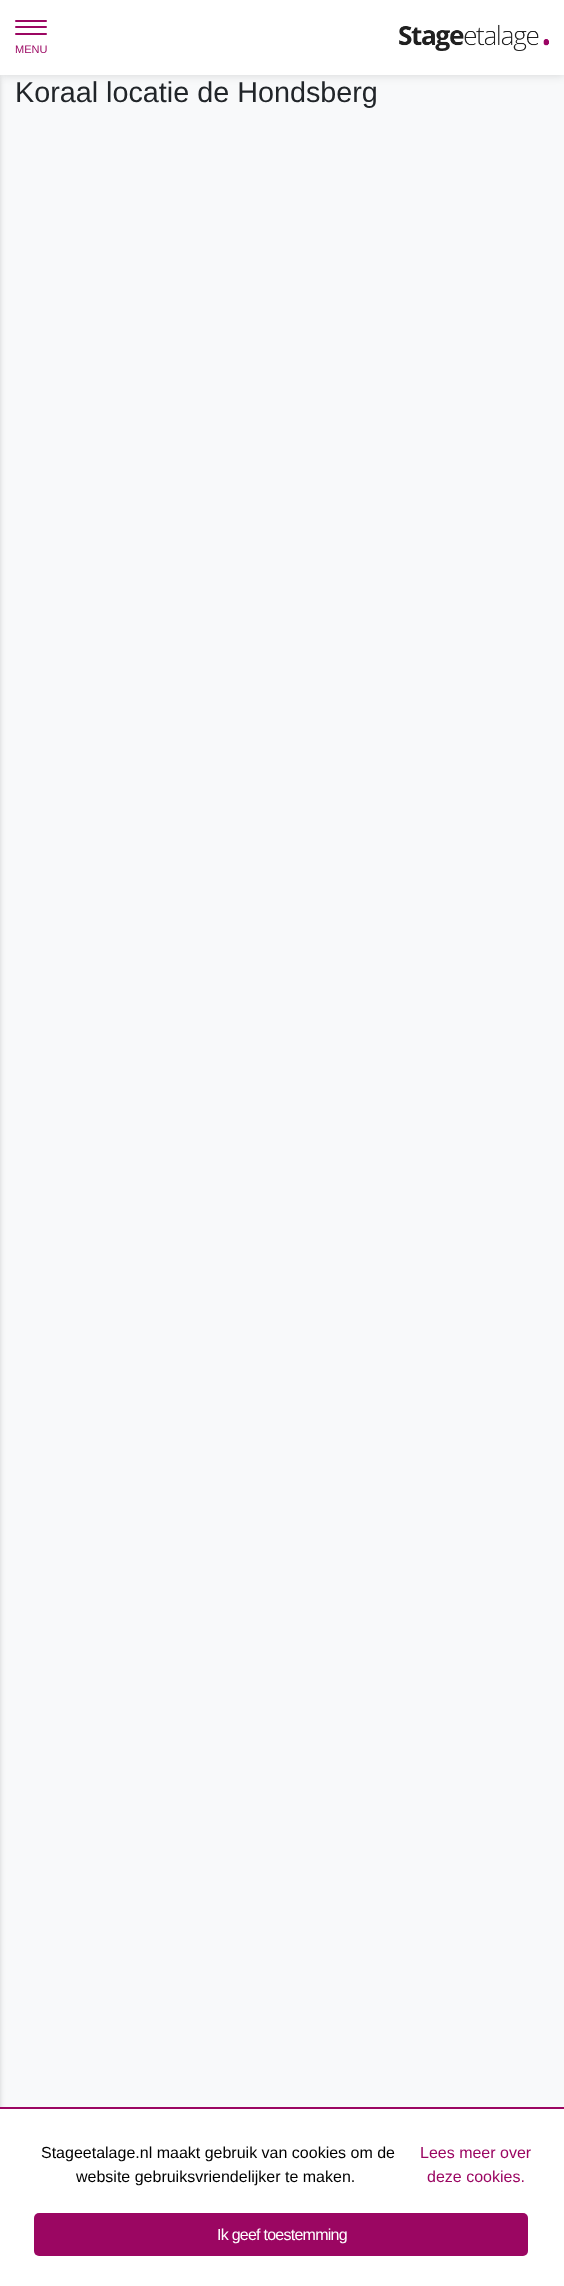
(async () => {
  const canvas = document.querySelector("canvas");
  canvas.width = 564;
  canvas.height = 2286;
  const ctx = canvas.getContext("2d");
  ctx.miterLimit = 4;
  ctx.fontKerning = "normal";
  async function loadImage(src) {
    const img = new Image();
    img.src = src;
    await img.decode();
    return img;
  }

  ctx.fillStyle = "#f8f9fa";
  ctx.fillRect(0, 0, 564, 2286);
  ctx.fillStyle = "rgba(50, 50, 50, 0.75)";
  ctx.filter = "blur(5px)";
  ctx.beginPath();
  ctx.rect(-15, 75, 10, 2211);
  ctx.fill();
  ctx.filter = "none";
  ctx.fillStyle = "rgba(0, 0, 0, 0.15)";
  ctx.filter = "blur(5px)";
  ctx.beginPath();
  ctx.rect(0, 0, 564, 75);
  ctx.fill();
  ctx.filter = "none";
  ctx.fillStyle = "#ffffff";
  ctx.fillRect(0, 0, 564, 75);
  ctx.fillStyle = "#9b0662";
  ctx.beginPath();
  ctx.roundRect(15, 20, 32, 2, 1);
  ctx.fill();
  ctx.beginPath();
  ctx.roundRect(15, 26, 32, 2, 1);
  ctx.fill();
  ctx.beginPath();
  ctx.roundRect(15, 33, 32, 2, 1);
  ctx.fill();
  ctx.drawImage(await loadImage("img/1.png"), 399, 24, 150, 27);
  ctx.fillStyle = "#ffffff";
  ctx.fillRect(0, 2109, 564, 177);
  ctx.fillStyle = "#9b0662";
  ctx.fillRect(0, 2107, 564, 2);
  ctx.beginPath();
  ctx.roundRect(34, 2213, 494, 43, 5);
  ctx.fill();
  ctx.font = "11px Liberation Sans";
  ctx.fillText("MENU", 15, 53);
  ctx.font = "28.75px Liberation Sans";
  ctx.fillStyle = "#212529";
  ctx.fillText("Koraal locatie de Hondsberg", 15, 102);
  ctx.font = "16px Liberation Sans";
  ctx.fillStyle = "#000000";
  ctx.fillText("Stageetalage.nl maakt gebruik van cookies om de", 41, 2158);
  ctx.fillStyle = "#9b0662";
  ctx.fillText("Lees meer over", 420, 2158);
  ctx.fillText("deze cookies.", 427, 2182);
  ctx.fillStyle = "#000000";
  ctx.fillText("website gebruiksvriendelijker te maken.", 76, 2182);
  ctx.letterSpacing = "-0.75px";
  ctx.fillStyle = "#ffffff";
  ctx.fillText("Ik geef toestemming", 217, 2240);
})();
